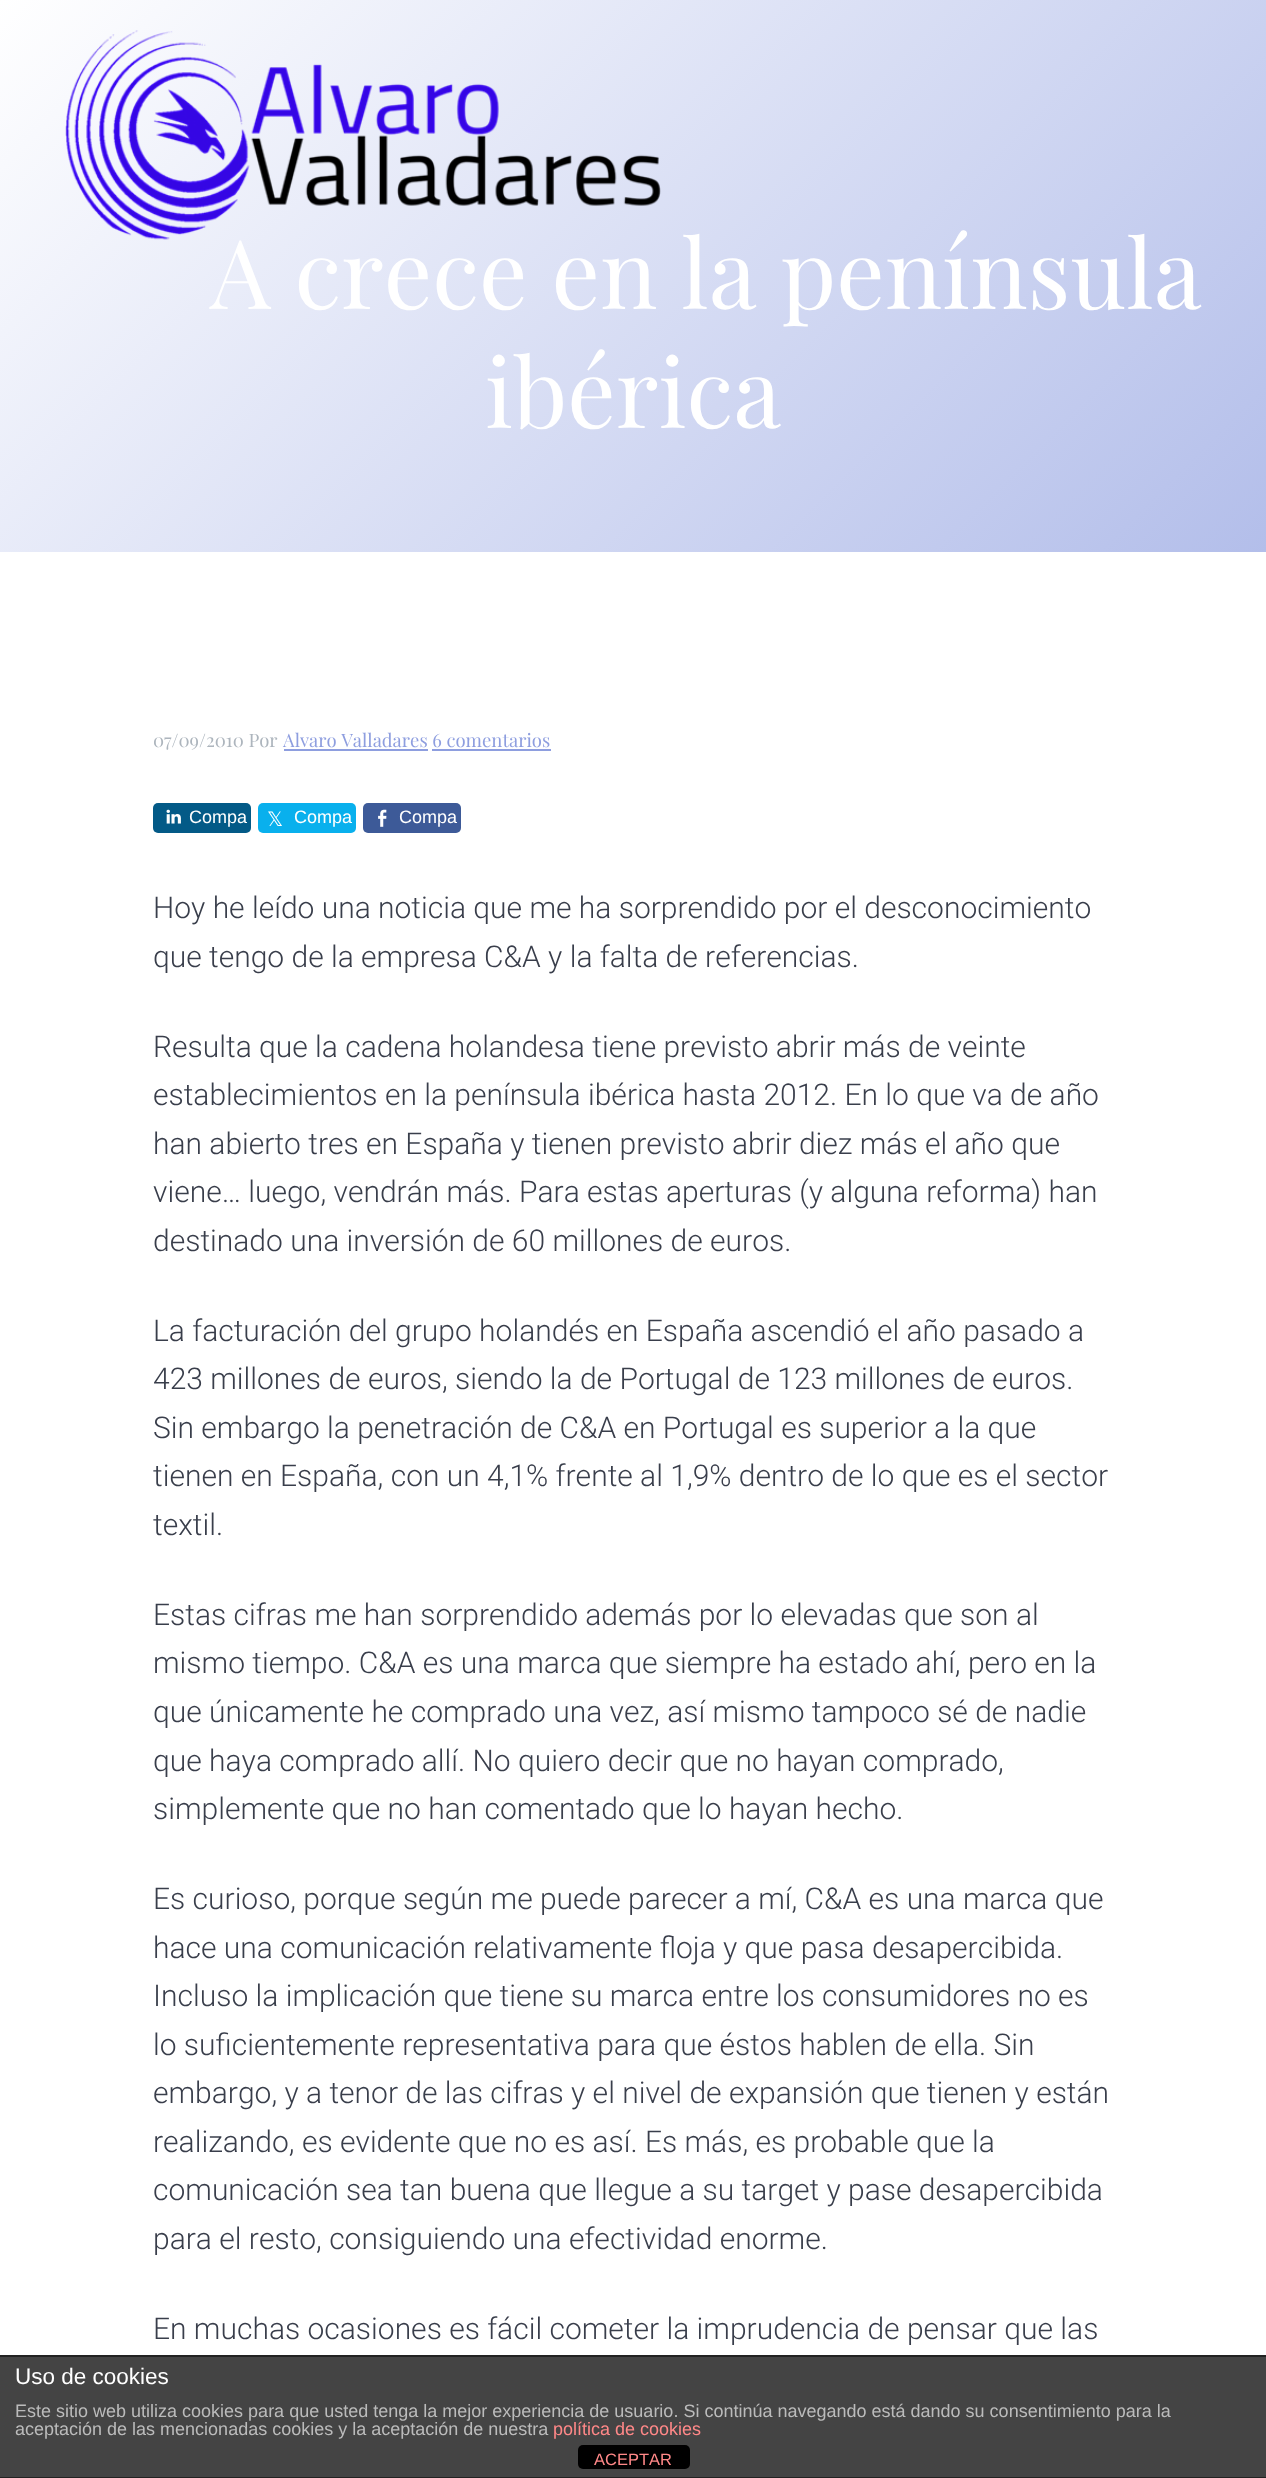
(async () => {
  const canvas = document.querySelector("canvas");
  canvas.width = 1266;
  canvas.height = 2478;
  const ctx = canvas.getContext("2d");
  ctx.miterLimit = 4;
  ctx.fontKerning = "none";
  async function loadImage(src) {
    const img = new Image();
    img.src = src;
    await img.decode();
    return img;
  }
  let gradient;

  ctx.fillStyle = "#ffffff";
  ctx.fillRect(0, 0, 1266, 2478);
  gradient = ctx.createLinearGradient(178, -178, 1088, 731);
  gradient.addColorStop(0, "#ffffff");
  gradient.addColorStop(1, "#b3beea");
  ctx.fillStyle = gradient;
  ctx.fillRect(0, 0, 1266, 552);
  ctx.fillStyle = "#8e9edf";
  ctx.fillRect(284, 749, 144, 2);
  ctx.fillRect(432, 749, 119, 2);
  ctx.fillStyle = "#035a87";
  ctx.beginPath();
  ctx.roundRect(153, 803, 98, 30, 5);
  ctx.fill();
  ctx.drawImage(await loadImage("img/2.png"), 166, 809, 15, 15);
  ctx.fillStyle = "#09b0ed";
  ctx.beginPath();
  ctx.roundRect(258, 803, 98, 30, 5);
  ctx.fill();
  ctx.fillStyle = "#3d5a98";
  ctx.beginPath();
  ctx.roundRect(363, 803, 98, 30, 5);
  ctx.fill();
  ctx.drawImage(await loadImage("img/3.png"), 378, 809, 9, 18);
  for (const [x, y, w, h, color] of [
    [0, 2357, 1266, 120, "#444444"],
    [0, 2355, 1266, 2, "#222222"],
    [0, 2477, 1266, 1, "#222222"],
  ]) {
    ctx.fillStyle = color;
    ctx.fillRect(x, y, w, h);
  }
  ctx.fillStyle = "#000000";
  ctx.beginPath();
  ctx.roundRect(578, 2445, 112, 24, 5);
  ctx.fill();
  ctx.font = "96px Playfair Display";
  ctx.fillStyle = "#ffffff";
  ctx.fillText("A crece en la península", 210, 309);
  ctx.drawImage(await loadImage("img/1.png"), 65, 30, 596, 210);
  ctx.fillText("ibérica", 485, 428);
  ctx.font = "18.5px Playfair Display";
  ctx.fillStyle = "#adb5bd";
  ctx.fillText("07/09/2010 Por", 153, 747);
  ctx.fillStyle = "#8e9edf";
  ctx.fillText("Alvaro Valladares 6 comentarios", 283, 747);
  ctx.font = "18px Liberation Sans";
  ctx.fillStyle = "#ffffff";
  ctx.fillText("Compa", 189, 823);
  ctx.font = "20px DejaVu Sans";
  ctx.fillText("𝕏", 267, 826);
  ctx.font = "18px Liberation Sans";
  ctx.fillText("Compa", 294, 823);
  ctx.fillText("Compa", 399, 823);
  ctx.font = "300 30px Roboto";
  ctx.fillStyle = "#393e4b";
  for (const [text, x, y] of [
    ["Hoy he leído una noticia que me ha sorprendido por el desconocimiento", 153, 918],
    ["que tengo de la empresa C&A y la falta de referencias.", 153, 967],
    ["Resulta que la cadena holandesa tiene previsto abrir más de veinte", 153, 1057],
    ["establecimientos en la península ibérica hasta 2012. En lo que va de año", 153, 1105],
    ["han abierto tres en España y tienen previsto abrir diez más el año que", 153, 1154],
    ["viene… luego, vendrán más. Para estas aperturas (y alguna reforma) han", 153, 1202],
    ["destinado una inversión de 60 millones de euros.", 153, 1251],
    ["La facturación del grupo holandés en España ascendió el año pasado a", 153, 1341],
    ["423 millones de euros, siendo la de Portugal de 123 millones de euros.", 153, 1389],
    ["Sin embargo la penetración de C&A en Portugal es superior a la que", 153, 1438],
    ["tienen en España, con un 4,1% frente al 1,9% dentro de lo que es el sector", 153, 1486],
    ["textil.", 153, 1535],
    ["Estas cifras me han sorprendido además por lo elevadas que son al", 153, 1625],
    ["mismo tiempo. C&A es una marca que siempre ha estado ahí, pero en la", 153, 1673],
    ["que únicamente he comprado una vez, así mismo tampoco sé de nadie", 153, 1722],
    ["que haya comprado allí. No quiero decir que no hayan comprado,", 153, 1771],
    ["simplemente que no han comentado que lo hayan hecho.", 153, 1819],
    ["Es curioso, porque según me puede parecer a mí, C&A es una marca que", 153, 1909],
    ["hace una comunicación relativamente floja y que pasa desapercibida.", 153, 1958],
    ["Incluso la implicación que tiene su marca entre los consumidores no es", 153, 2006],
    ["lo suficientemente representativa para que éstos hablen de ella. Sin", 153, 2055],
    ["embargo, y a tenor de las cifras y el nivel de expansión que tienen y están", 153, 2103],
    ["realizando, es evidente que no es así. Es más, es probable que la", 153, 2152],
    ["comunicación sea tan buena que llegue a su target y pase desapercibida", 153, 2200],
    ["para el resto, consiguiendo una efectividad enorme.", 153, 2249],
    ["En muchas ocasiones es fácil cometer la imprudencia de pensar que las", 153, 2339],
  ]) {
    ctx.fillText(text, x, y);
  }
  ctx.font = "22.5px Liberation Sans";
  ctx.fillStyle = "#ffffff";
  ctx.fillText("Uso de cookies", 15, 2384);
  ctx.font = "18px Liberation Sans";
  ctx.fillStyle = "#bbbbbb";
  ctx.fillText("Este sitio web utiliza cookies para que usted tenga la mejor experiencia de usuario. Si continúa navegando está dando su consentimiento para la", 15, 2417);
  ctx.fillText("aceptación de las mencionadas cookies y la aceptación de nuestra", 15, 2435);
  ctx.fillStyle = "#ff8888";
  ctx.fillText("política de cookies", 553, 2435);
  ctx.font = "16.5px Liberation Sans";
  ctx.fillText("ACEPTAR", 594, 2465);
})();
